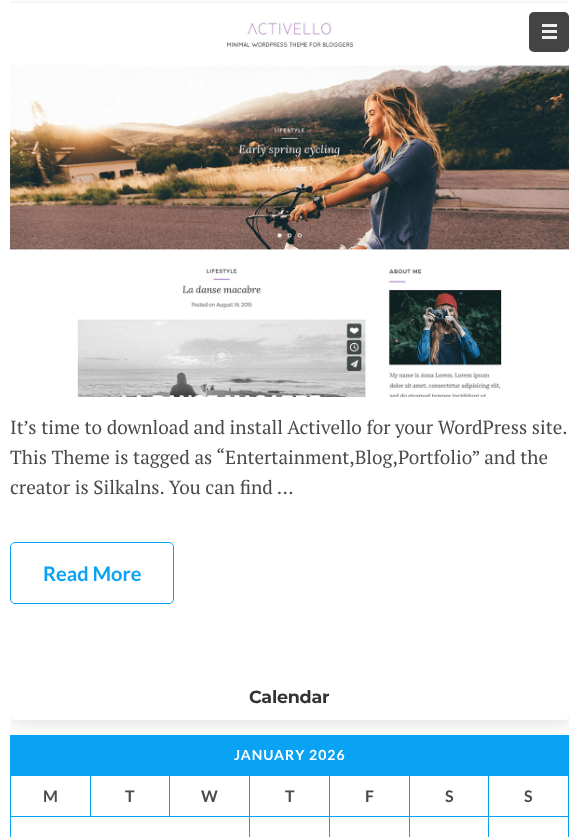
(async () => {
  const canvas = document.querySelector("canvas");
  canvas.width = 579;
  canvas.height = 837;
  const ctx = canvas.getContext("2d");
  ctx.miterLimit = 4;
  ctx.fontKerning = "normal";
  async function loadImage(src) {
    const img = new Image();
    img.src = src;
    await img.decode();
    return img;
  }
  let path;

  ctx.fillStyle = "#ffffff";
  ctx.fillRect(0, 0, 579, 837);
  ctx.drawImage(await loadImage("img/1.png"), 10, 1, 559, 396);
  ctx.fillStyle = "#444444";
  ctx.beginPath();
  ctx.roundRect(529, 12, 40, 40, 5);
  ctx.fill();
  for (const [x, y, w, h, color] of [
    [542, 24, 15, 3, "#eeeeee"],
    [542, 30, 15, 3, "#eeeeee"],
    [542, 36, 15, 3, "#eeeeee"],
  ]) {
    ctx.fillStyle = color;
    ctx.fillRect(x, y, w, h);
  }
  ctx.beginPath();
  ctx.roundRect(10.5, 542.5, 163, 61, 4.5);
  ctx.strokeStyle = "#0aa3f3";
  ctx.stroke();
  ctx.save();
  ctx.beginPath();
  ctx.rect(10, 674, 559, 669);
  ctx.clip();
  path = new Path2D("M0 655H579V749H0ZM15 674H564C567 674 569 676 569 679V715C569 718 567 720 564 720H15C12 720 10 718 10 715V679C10 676 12 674 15 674Z");
  ctx.clip(path, "evenodd");
  ctx.fillStyle = "rgba(0, 0, 0, 0.1)";
  ctx.filter = "blur(7.5px)";
  ctx.beginPath();
  ctx.roundRect(11, 679, 559, 46, 5);
  ctx.fill();
  ctx.filter = "none";
  ctx.restore();
  for (const [x, y, w, h, color] of [
    [10, 735, 559, 40, "#0aa3f3"],
    [488, 775, 81, 1, "#0aa3f3"],
    [488, 816, 81, 1, "#0aa3f3"],
    [488, 816, 1, 21, "#0aa3f3"],
    [409, 816, 80, 1, "#0aa3f3"],
    [488, 775, 1, 42, "#0aa3f3"],
    [409, 775, 80, 1, "#0aa3f3"],
    [409, 816, 1, 21, "#0aa3f3"],
    [329, 816, 81, 1, "#0aa3f3"],
    [409, 775, 1, 42, "#0aa3f3"],
    [329, 775, 81, 1, "#0aa3f3"],
    [329, 816, 1, 21, "#0aa3f3"],
    [249, 816, 81, 1, "#0aa3f3"],
    [329, 775, 1, 42, "#0aa3f3"],
    [249, 775, 81, 1, "#0aa3f3"],
    [249, 816, 1, 21, "#0aa3f3"],
    [10, 816, 240, 1, "#0aa3f3"],
    [249, 775, 1, 42, "#0aa3f3"],
    [169, 775, 81, 1, "#0aa3f3"],
    [169, 775, 1, 42, "#0aa3f3"],
    [90, 775, 80, 1, "#0aa3f3"],
    [90, 775, 1, 42, "#0aa3f3"],
    [10, 775, 81, 1, "#0aa3f3"],
    [10, 816, 1, 21, "#0aa3f3"],
    [10, 775, 1, 42, "#0aa3f3"],
    [568, 816, 1, 21, "#0aa3f3"],
    [568, 775, 1, 42, "#0aa3f3"],
  ]) {
    ctx.fillStyle = color;
    ctx.fillRect(x, y, w, h);
  }
  ctx.font = "19px PT Serif";
  ctx.fillStyle = "#4a4a4a";
  for (const [text, x, y] of [
    ["It’s time to download and install Activello for your WordPress site.", 10, 434],
    ["This Theme is tagged as “Entertainment,Blog,Portfolio” and the", 10, 464],
    ["creator is Silkalns. You can find …", 10, 494],
  ]) {
    ctx.fillText(text, x, y);
  }
  ctx.font = "bold 20px Lato";
  ctx.fillStyle = "#0aa3f3";
  ctx.fillText("Read More", 43, 581);
  ctx.letterSpacing = "-0.25px";
  ctx.font = "bold 17.5px Montserrat";
  ctx.fillStyle = "#333333";
  ctx.fillText("Calendar", 249, 703);
  ctx.letterSpacing = "1px";
  ctx.font = "bold 14px Lato";
  ctx.fillStyle = "#ffffff";
  ctx.fillText("JANUARY 2026", 234, 760);
  ctx.letterSpacing = "0px";
  ctx.font = "bold 16px Lato";
  ctx.fillStyle = "#4a4a4a";
  for (const [text, x, y] of [
    ["M", 43, 802],
    ["T", 125, 802],
    ["W", 201, 802],
    ["T", 285, 802],
    ["F", 365, 802],
    ["S", 445, 802],
    ["S", 524, 802],
  ]) {
    ctx.fillText(text, x, y);
  }
})();
